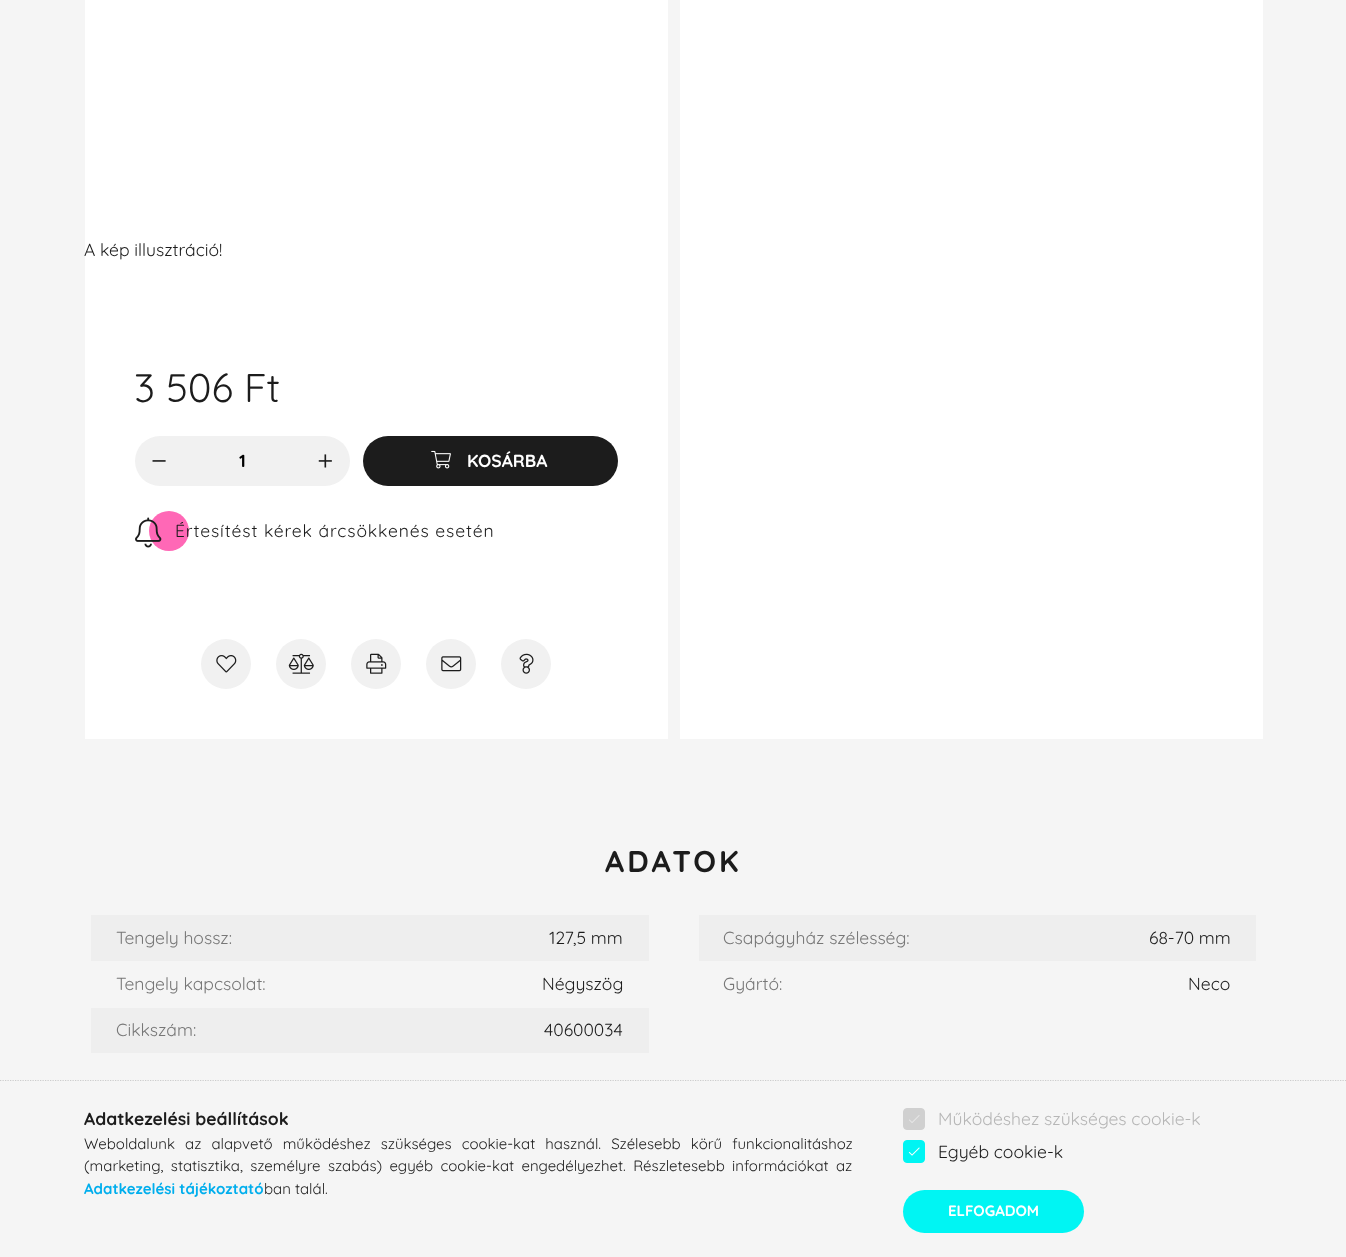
(async () => {
  const canvas = document.querySelector("canvas");
  canvas.width = 1346;
  canvas.height = 1257;
  const ctx = canvas.getContext("2d");
  ctx.miterLimit = 4;
  ctx.fontKerning = "normal";
  async function loadImage(src) {
    const img = new Image();
    img.src = src;
    await img.decode();
    return img;
  }
  let path;

  ctx.fillStyle = "#f5f5f5";
  ctx.fillRect(0, 0, 1346, 1257);
  ctx.fillStyle = "#ffffff";
  ctx.fillRect(85, 0, 583, 739);
  ctx.fillStyle = "#f1f1f1";
  ctx.beginPath();
  ctx.roundRect(135, 436, 215, 50, 25);
  ctx.fill();
  ctx.drawImage(await loadImage("img/1.png"), 152, 460, 14, 2);
  ctx.drawImage(await loadImage("img/2.png"), 318, 454, 14, 14);
  ctx.fillStyle = "#1c1c1c";
  ctx.beginPath();
  ctx.roundRect(363, 436, 255, 50, 25);
  ctx.fill();
  ctx.drawImage(await loadImage("img/3.png"), 431, 450, 20, 19);
  ctx.fillStyle = "#ff68b6";
  ctx.beginPath();
  ctx.arc(169, 531, 20, 0, Math.PI * 2);
  ctx.fill();
  ctx.drawImage(await loadImage("img/4.png"), 135, 517, 27, 31);
  ctx.fillStyle = "#f1f1f1";
  ctx.beginPath();
  ctx.arc(226, 664, 25, 0, Math.PI * 2);
  ctx.fill();
  ctx.drawImage(await loadImage("img/5.png"), 216, 655, 21, 18);
  ctx.beginPath();
  ctx.arc(301, 664, 25, 0, Math.PI * 2);
  ctx.fill();
  ctx.drawImage(await loadImage("img/6.png"), 288, 653, 26, 21);
  ctx.beginPath();
  ctx.arc(376, 664, 25, 0, Math.PI * 2);
  ctx.fill();
  ctx.drawImage(await loadImage("img/7.png"), 366, 653, 21, 21);
  ctx.beginPath();
  ctx.arc(451, 664, 25, 0, Math.PI * 2);
  ctx.fill();
  ctx.drawImage(await loadImage("img/8.png"), 441, 656, 21, 16);
  ctx.beginPath();
  ctx.arc(526, 664, 25, 0, Math.PI * 2);
  ctx.fill();
  ctx.drawImage(await loadImage("img/9.png"), 519, 653, 15, 21);
  for (const [x, y, w, h, color] of [
    [680, 0, 583, 739, "#ffffff"],
    [91, 915, 558, 46, "#eeeeee"],
    [699, 915, 557, 46, "#eeeeee"],
    [91, 1008, 558, 45, "#eeeeee"],
  ]) {
    ctx.fillStyle = color;
    ctx.fillRect(x, y, w, h);
  }
  path = new Path2D("M0 1080.5H1346");
  ctx.strokeStyle = "#cccccc";
  ctx.lineWidth = 1.2;
  ctx.setLineDash([1.25, 1.25]);
  ctx.stroke(path);
  ctx.fillStyle = "#d0d0d0";
  ctx.beginPath();
  ctx.roundRect(903.5, 1108.5, 21, 21, 3.5);
  ctx.fill();
  ctx.strokeStyle = "#d0d0d0";
  ctx.lineWidth = 1;
  ctx.setLineDash([]);
  ctx.stroke();
  ctx.drawImage(await loadImage("img/10.png"), 909, 1115, 11, 8);
  ctx.fillStyle = "#00f5f3";
  ctx.beginPath();
  ctx.roundRect(903.5, 1140.5, 21, 22, 3.5);
  ctx.fill();
  ctx.strokeStyle = "#00f5f3";
  ctx.stroke();
  ctx.drawImage(await loadImage("img/11.png"), 908, 1147, 12, 9);
  ctx.beginPath();
  ctx.roundRect(903, 1190, 181, 43, 21.5);
  ctx.fill();
  ctx.font = "17.5px Quicksand";
  ctx.fillStyle = "#1c1c1c";
  ctx.fillText("A kép illusztráció!", 84, 256);
  ctx.font = "40px Quicksand";
  ctx.fillText("3 506 Ft", 134, 402);
  ctx.font = "bold 17.5px Quicksand";
  ctx.fillStyle = "#000000";
  ctx.fillText("1", 239, 467);
  ctx.fillStyle = "#ffffff";
  ctx.fillText("KOSÁRBA", 467, 467);
  ctx.letterSpacing = "0.9px";
  ctx.font = "17.5px Quicksand";
  ctx.fillStyle = "#1c1c1c";
  ctx.fillText("Értesítést kérek árcsökkenés esetén", 175, 537);
  ctx.letterSpacing = "3px";
  ctx.font = "bold 30px Quicksand";
  ctx.fillText("ADATOK", 605, 872);
  ctx.letterSpacing = "0px";
  ctx.font = "17.5px Quicksand";
  ctx.fillStyle = "#777777";
  ctx.fillText("Tengely hossz:", 116, 944);
  ctx.fillStyle = "#1c1c1c";
  ctx.fillText("127,5 mm", 549, 944);
  ctx.fillStyle = "#777777";
  ctx.fillText("Csapágyház szélesség:", 723, 944);
  ctx.fillStyle = "#1c1c1c";
  ctx.fillText("68-70 mm", 1149, 944);
  ctx.fillStyle = "#777777";
  ctx.fillText("Tengely kapcsolat:", 116, 990);
  ctx.fillStyle = "#1c1c1c";
  ctx.fillText("Négyszög", 542, 990);
  ctx.fillStyle = "#777777";
  ctx.fillText("Gyártó:", 723, 990);
  ctx.fillStyle = "#1c1c1c";
  ctx.fillText("Neco", 1188, 990);
  ctx.fillStyle = "#777777";
  ctx.fillText("Cikkszám:", 116, 1036);
  ctx.fillStyle = "#1c1c1c";
  ctx.fillText("40600034", 544, 1036);
  ctx.font = "bold 17.5px Quicksand";
  ctx.fillText("Adatkezelési beállítások", 84, 1125);
  ctx.wordSpacing = "6px";
  ctx.font = "15px Quicksand";
  ctx.fillText("Weboldalunk az alapvető működéshez szükséges cookie-kat használ. Szélesebb körű funkcionalitáshoz", 84, 1149);
  ctx.wordSpacing = "3.25px";
  ctx.fillText("(marketing, statisztika, személyre szabás) egyéb cookie-kat engedélyezhet. Részletesebb információkat az", 84, 1171);
  ctx.wordSpacing = "0px";
  ctx.font = "bold 15px Quicksand";
  ctx.fillStyle = "#00aeed";
  ctx.fillText("Adatkezelési tájékoztató", 84, 1194);
  ctx.font = "15px Quicksand";
  ctx.fillStyle = "#1c1c1c";
  ctx.fillText("ban talál.", 264, 1194);
  ctx.font = "17.5px Quicksand";
  ctx.fillStyle = "#b6b6b6";
  ctx.fillText("Működéshez szükséges cookie-k", 938, 1125);
  ctx.fillStyle = "#1c1c1c";
  ctx.fillText("Egyéb cookie-k", 938, 1158);
  ctx.font = "bold 15px Quicksand";
  ctx.fillStyle = "#ffffff";
  ctx.fillText("ELFOGADOM", 948, 1216);
})();
